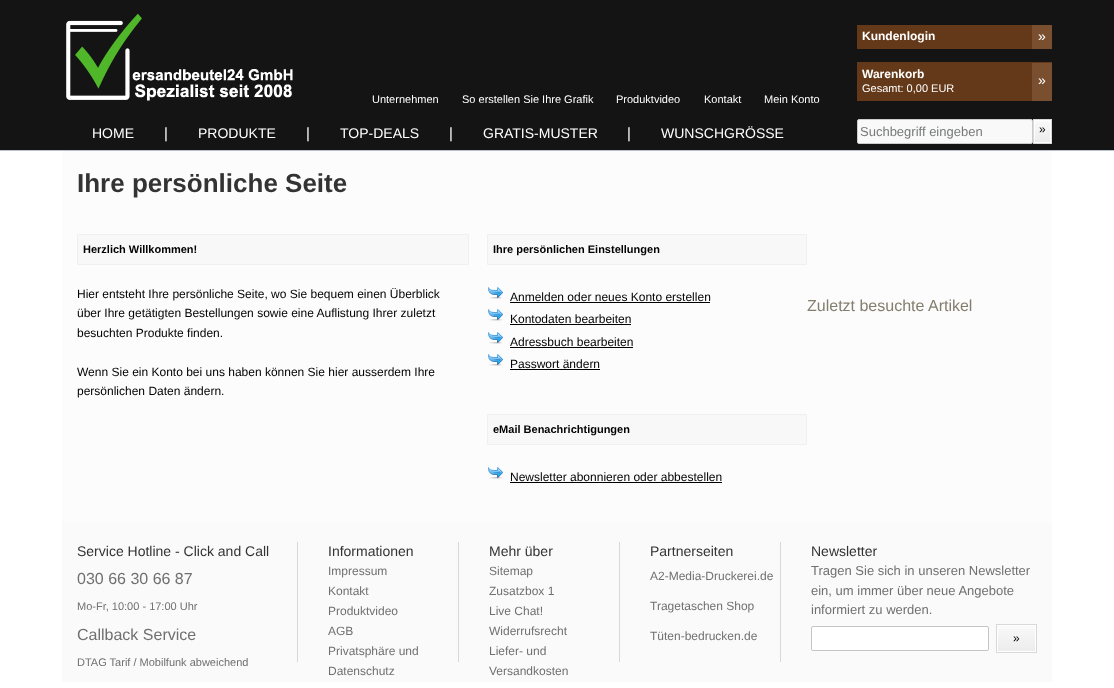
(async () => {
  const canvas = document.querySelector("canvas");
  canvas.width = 1114;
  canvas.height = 688;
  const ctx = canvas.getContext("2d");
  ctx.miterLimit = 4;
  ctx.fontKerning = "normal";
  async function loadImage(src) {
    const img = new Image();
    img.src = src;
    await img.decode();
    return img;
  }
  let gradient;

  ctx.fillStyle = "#ffffff";
  ctx.fillRect(0, 0, 1114, 688);
  ctx.fillStyle = "#141414";
  ctx.fillRect(0, 0, 1114, 150);
  ctx.fillStyle = "#b8c3d2";
  ctx.fillRect(0, 150, 1114, 1);
  ctx.drawImage(await loadImage("img/1.png"), 66, 13, 227, 88);
  for (const [x, y, w, h, color] of [
    [857, 25, 175, 24, "#643919"],
    [1032, 25, 20, 24, "#7a4f2f"],
    [857, 62, 195, 39, "#643919"],
    [1032, 63, 20, 38, "#7a4f2f"],
  ]) {
    ctx.fillStyle = color;
    ctx.fillRect(x, y, w, h);
  }
  ctx.fillStyle = "#f9f9f9";
  ctx.beginPath();
  ctx.roundRect(857.5, 119.5, 175, 24, 1.5);
  ctx.fill();
  ctx.strokeStyle = "#cccccc";
  ctx.stroke();
  gradient = ctx.createLinearGradient(1043, 121, 1043, 142);
  gradient.addColorStop(0, "#f9f9f9");
  gradient.addColorStop(1, "#ececec");
  ctx.fillStyle = gradient;
  ctx.fillRect(1035, 121, 15, 21);
  ctx.strokeStyle = "#ffffff";
  ctx.strokeRect(1034.5, 120.5, 16, 22);
  ctx.strokeStyle = "#d8d8d8";
  ctx.strokeRect(1033.5, 119.5, 18, 24);
  ctx.fillStyle = "#fcfcfc";
  ctx.fillRect(62, 151, 990, 371);
  ctx.fillStyle = "#f8f8f8";
  ctx.beginPath();
  ctx.rect(77.5, 234.5, 391, 30);
  ctx.fill();
  ctx.strokeStyle = "#f2f0ec";
  ctx.stroke();
  ctx.beginPath();
  ctx.rect(487.5, 234.5, 319, 30);
  ctx.fill();
  ctx.stroke();
  ctx.drawImage(await loadImage("img/2.png"), 488, 287, 15, 12);
  ctx.fillStyle = "#000000";
  ctx.fillRect(510, 302, 200, 1);
  ctx.drawImage(await loadImage("img/2.png"), 488, 309, 15, 12);
  ctx.fillRect(510, 324, 121, 1);
  ctx.drawImage(await loadImage("img/2.png"), 488, 332, 15, 12);
  ctx.fillRect(510, 347, 123, 1);
  ctx.drawImage(await loadImage("img/2.png"), 488, 354, 15, 12);
  ctx.fillRect(510, 369, 90, 1);
  ctx.fillStyle = "#f8f8f8";
  ctx.beginPath();
  ctx.rect(487.5, 414.5, 319, 30);
  ctx.fill();
  ctx.stroke();
  ctx.drawImage(await loadImage("img/2.png"), 488, 467, 15, 12);
  for (const [x, y, w, h, color] of [
    [510, 482, 212, 1, "#000000"],
    [62, 522, 990, 160, "#fafafa"],
    [297, 542, 1, 120, "#d8d8d8"],
    [458, 542, 1, 120, "#d8d8d8"],
    [619, 542, 1, 120, "#d8d8d8"],
    [780, 542, 1, 120, "#d8d8d8"],
  ]) {
    ctx.fillStyle = color;
    ctx.fillRect(x, y, w, h);
  }
  ctx.fillStyle = "#ffffff";
  ctx.beginPath();
  ctx.roundRect(811.5, 626.5, 177, 24, 1.5);
  ctx.fill();
  ctx.strokeStyle = "#c5c5c5";
  ctx.stroke();
  gradient = ctx.createLinearGradient(1017, 626, 1017, 651);
  gradient.addColorStop(0, "#f9f9f9");
  gradient.addColorStop(1, "#ececec");
  ctx.fillStyle = gradient;
  ctx.fillRect(998, 629, 37, 22);
  ctx.strokeStyle = "#ffffff";
  ctx.strokeRect(997.5, 625.5, 38, 26);
  ctx.strokeStyle = "#d8d8d8";
  ctx.strokeRect(996.5, 624.5, 40, 28);
  ctx.font = "bold 12px Liberation Sans";
  ctx.fillStyle = "#ffffff";
  ctx.fillText("Kundenlogin", 862, 40);
  ctx.font = "14px Liberation Sans";
  ctx.fillText("»", 1038, 41);
  ctx.font = "bold 12px Liberation Sans";
  ctx.fillText("Warenkorb", 862, 78);
  ctx.font = "14px Liberation Sans";
  ctx.fillText("»", 1038, 85);
  ctx.font = "11px Liberation Sans";
  for (const [text, x, y] of [
    ["Gesamt: 0,00 EUR", 862, 92],
    ["Unternehmen", 372, 103],
    ["So erstellen Sie Ihre Grafik", 462, 103],
    ["Produktvideo", 616, 103],
    ["Kontakt", 704, 103],
    ["Mein Konto", 764, 103],
  ]) {
    ctx.fillText(text, x, y);
  }
  ctx.font = "14px Liberation Sans";
  ctx.fillText("HOME", 92, 138);
  ctx.font = "15px Liberation Sans";
  ctx.fillText("|", 164, 138);
  ctx.font = "14px Liberation Sans";
  ctx.fillText("PRODUKTE", 198, 138);
  ctx.font = "15px Liberation Sans";
  ctx.fillText("|", 306, 138);
  ctx.font = "14px Liberation Sans";
  ctx.fillText("TOP-DEALS", 340, 138);
  ctx.font = "15px Liberation Sans";
  ctx.fillText("|", 449, 138);
  ctx.font = "14px Liberation Sans";
  ctx.fillText("GRATIS-MUSTER", 483, 138);
  ctx.font = "15px Liberation Sans";
  ctx.fillText("|", 627, 138);
  ctx.font = "14px Liberation Sans";
  ctx.fillText("WUNSCHGRÖSSE", 661, 138);
  ctx.font = "13px Liberation Sans";
  ctx.fillStyle = "#777a78";
  ctx.fillText("Suchbegriff eingeben", 860, 136);
  ctx.font = "12px Liberation Sans";
  ctx.fillStyle = "#000000";
  ctx.fillText("»", 1039, 133);
  ctx.font = "bold 26px Liberation Sans";
  ctx.fillStyle = "#333333";
  ctx.fillText("Ihre persönliche Seite", 77, 192);
  ctx.font = "bold 11px Liberation Sans";
  ctx.fillStyle = "#000000";
  ctx.fillText("Herzlich Willkommen!", 83, 253);
  ctx.font = "12px Liberation Sans";
  for (const [text, x, y] of [
    ["Hier entsteht Ihre persönliche Seite, wo Sie bequem einen Überblick", 77, 298],
    ["über Ihre getätigten Bestellungen sowie eine Auflistung Ihrer zuletzt", 77, 317],
    ["besuchten Produkte finden.", 77, 337],
    ["Wenn Sie ein Konto bei uns haben können Sie hier ausserdem Ihre", 77, 376],
    ["persönlichen Daten ändern.", 77, 395],
  ]) {
    ctx.fillText(text, x, y);
  }
  ctx.font = "bold 11px Liberation Sans";
  ctx.fillText("Ihre persönlichen Einstellungen", 493, 253);
  ctx.font = "12px Liberation Sans";
  for (const [text, x, y] of [
    ["Anmelden oder neues Konto erstellen", 510, 301],
    ["Kontodaten bearbeiten", 510, 323],
    ["Adressbuch bearbeiten", 510, 346],
    ["Passwort ändern", 510, 368],
  ]) {
    ctx.fillText(text, x, y);
  }
  ctx.font = "bold 11px Liberation Sans";
  ctx.fillText("eMail Benachrichtigungen", 493, 433);
  ctx.font = "12px Liberation Sans";
  ctx.fillText("Newsletter abonnieren oder abbestellen", 510, 481);
  ctx.font = "16px Liberation Sans";
  ctx.fillStyle = "#847d6c";
  ctx.fillText("Zuletzt besuchte Artikel", 807, 311);
  ctx.font = "14px Liberation Sans";
  ctx.fillStyle = "#333333";
  ctx.fillText("Service Hotline - Click and Call", 77, 556);
  ctx.font = "16px Liberation Sans";
  ctx.fillStyle = "#707070";
  ctx.fillText("030 66 30 66 87", 77, 584);
  ctx.font = "11px Liberation Sans";
  ctx.fillText("Mo-Fr, 10:00 - 17:00 Uhr", 77, 610);
  ctx.font = "16px Liberation Sans";
  ctx.fillText("Callback Service", 77, 640);
  ctx.font = "11px Liberation Sans";
  ctx.fillText("DTAG Tarif / Mobilfunk abweichend", 77, 666);
  ctx.font = "14px Liberation Sans";
  ctx.fillStyle = "#333333";
  ctx.fillText("Informationen", 328, 556);
  ctx.font = "12px Liberation Sans";
  ctx.fillStyle = "#707070";
  for (const [text, x, y] of [
    ["Impressum", 328, 575],
    ["Kontakt", 328, 595],
    ["Produktvideo", 328, 615],
    ["AGB", 328, 635],
    ["Privatsphäre und", 328, 655],
    ["Datenschutz", 328, 675],
  ]) {
    ctx.fillText(text, x, y);
  }
  ctx.font = "14px Liberation Sans";
  ctx.fillStyle = "#333333";
  ctx.fillText("Mehr über", 489, 556);
  ctx.font = "12px Liberation Sans";
  ctx.fillStyle = "#707070";
  for (const [text, x, y] of [
    ["Sitemap", 489, 575],
    ["Zusatzbox 1", 489, 595],
    ["Live Chat!", 489, 615],
    ["Widerrufsrecht", 489, 635],
    ["Liefer- und", 489, 655],
    ["Versandkosten", 489, 675],
  ]) {
    ctx.fillText(text, x, y);
  }
  ctx.font = "14px Liberation Sans";
  ctx.fillStyle = "#333333";
  ctx.fillText("Partnerseiten", 650, 556);
  ctx.font = "12px Liberation Sans";
  ctx.fillStyle = "#707070";
  for (const [text, x, y] of [
    ["A2-Media-Druckerei.de", 650, 580],
    ["Tragetaschen Shop", 650, 610],
    ["Tüten-bedrucken.de", 650, 640],
  ]) {
    ctx.fillText(text, x, y);
  }
  ctx.font = "14px Liberation Sans";
  ctx.fillStyle = "#333333";
  ctx.fillText("Newsletter", 811, 556);
  ctx.font = "13px Liberation Sans";
  ctx.fillStyle = "#707070";
  for (const [text, x, y] of [
    ["Tragen Sie sich in unseren Newsletter", 811, 575],
    ["ein, um immer über neue Angebote", 811, 595],
    ["informiert zu werden.", 811, 614],
  ]) {
    ctx.fillText(text, x, y);
  }
  ctx.font = "12px Liberation Sans";
  ctx.fillStyle = "#000000";
  ctx.fillText("»", 1013, 642);
})();
